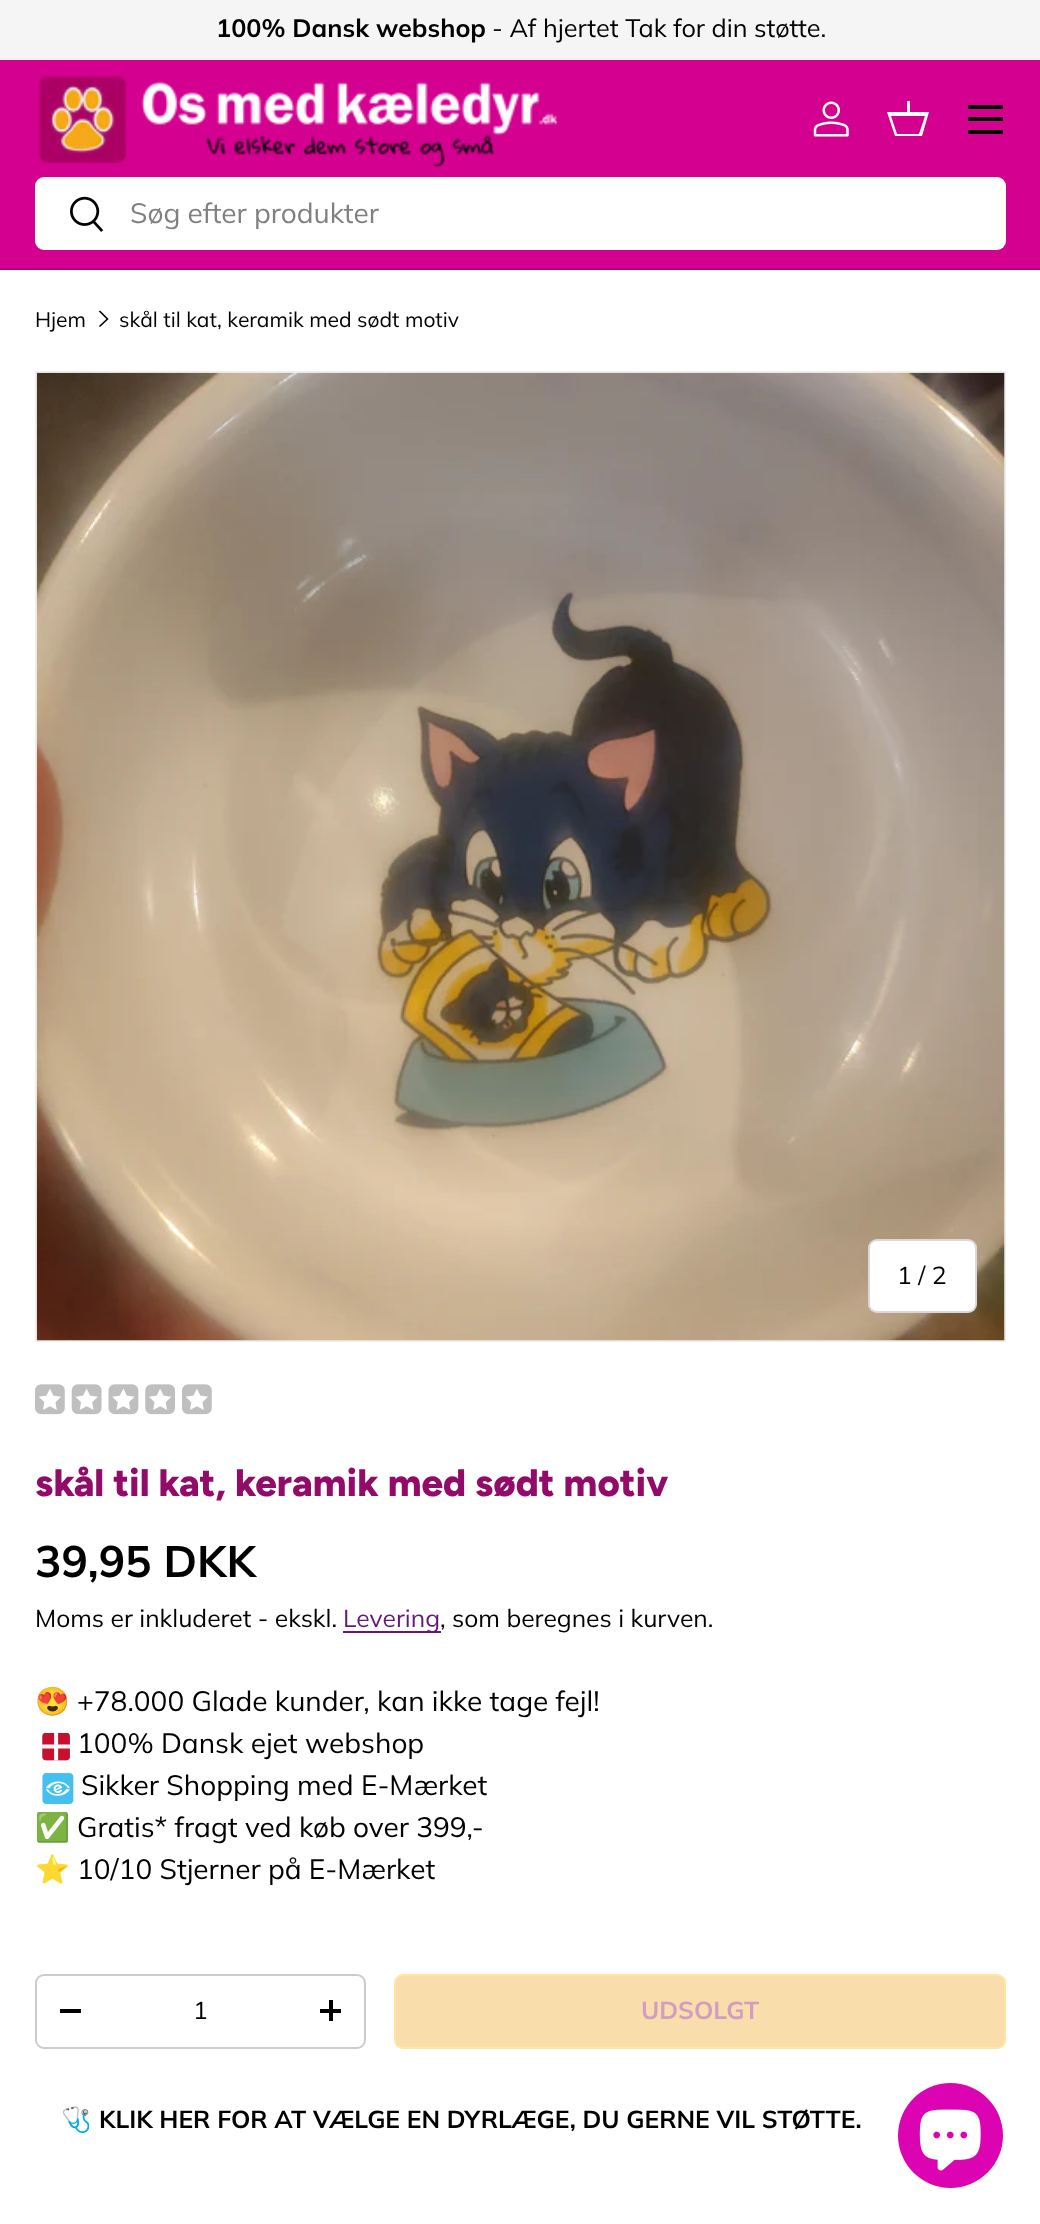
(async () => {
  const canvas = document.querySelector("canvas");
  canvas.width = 1040;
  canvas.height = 2224;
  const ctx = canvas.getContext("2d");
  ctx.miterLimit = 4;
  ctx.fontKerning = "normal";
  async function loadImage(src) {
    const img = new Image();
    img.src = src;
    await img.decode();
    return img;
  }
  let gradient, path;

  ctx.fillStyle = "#ffffff";
  ctx.fillRect(0, 0, 1040, 2224);
  for (const [x, y, w, h, color] of [
    [0, 0, 1040, 60, "#f5f5f5"],
    [0, 60, 1040, 208, "#d30090"],
    [0, 268, 1040, 2, "#b3007a"],
  ]) {
    ctx.fillStyle = color;
    ctx.fillRect(x, y, w, h);
  }
  ctx.drawImage(await loadImage("img/1.png"), 38, 75, 520, 92);
  ctx.drawImage(await loadImage("img/2.png"), 813, 101, 36, 36);
  ctx.fillStyle = "#ffffff";
  path = new Path2D("M907 112V101H910V112H929L922 136H895L887 112ZM891 116L897 134H919L925 116Z");
  ctx.fill(path);
  for (const [x, y, w, h, color] of [
    [968, 105, 35, 4, "#000000"],
    [968, 130, 35, 4, "#000000"],
    [968, 117, 35, 4, "#000000"],
  ]) {
    ctx.fillStyle = color;
    ctx.fillRect(x, y, w, h);
  }
  ctx.fillStyle = "#ffffff";
  ctx.beginPath();
  ctx.roundRect(35, 177, 971, 73, 9);
  ctx.fill();
  ctx.drawImage(await loadImage("img/3.png"), 70, 196, 34, 36);
  path = new Path2D("M99.5 311L107.5 319L99.5 326.5");
  ctx.strokeStyle = "#000000";
  ctx.lineWidth = 1.6;
  ctx.stroke(path);
  ctx.strokeStyle = "#eeeeee";
  ctx.lineWidth = 2;
  ctx.strokeRect(36, 372, 969, 969);
  ctx.drawImage(await loadImage("img/4.png"), 36, 372, 969, 969);
  ctx.beginPath();
  ctx.roundRect(868, 1239, 109, 74, 9);
  ctx.fill();
  ctx.beginPath();
  ctx.roundRect(869, 1240, 107, 72, 8);
  ctx.strokeStyle = "rgba(0, 0, 0, 0.15)";
  ctx.stroke();
  ctx.drawImage(await loadImage("img/5.png"), 35, 1384, 30, 31);
  ctx.drawImage(await loadImage("img/6.png"), 38, 1388, 23, 22);
  ctx.drawImage(await loadImage("img/7.png"), 71, 1384, 31, 31);
  ctx.drawImage(await loadImage("img/8.png"), 75, 1388, 23, 22);
  ctx.drawImage(await loadImage("img/9.png"), 108, 1384, 31, 31);
  ctx.drawImage(await loadImage("img/10.png"), 112, 1388, 23, 22);
  ctx.drawImage(await loadImage("img/11.png"), 145, 1384, 30, 31);
  ctx.drawImage(await loadImage("img/12.png"), 149, 1388, 23, 22);
  ctx.drawImage(await loadImage("img/5.png"), 182, 1384, 30, 31);
  ctx.drawImage(await loadImage("img/6.png"), 185, 1388, 23, 22);
  ctx.fillStyle = "#621979";
  ctx.fillRect(343, 1631, 98, 2);
  ctx.drawImage(await loadImage("img/13.png"), 42, 1733, 28, 28);
  ctx.drawImage(await loadImage("img/14.png"), 42, 1773, 32, 31);
  ctx.beginPath();
  ctx.roundRect(36, 1975, 329, 73, 8);
  ctx.strokeStyle = "#cccccc";
  ctx.stroke();
  for (const [x, y, w, h, color] of [
    [60, 2009, 21, 4, "#000000"],
    [320, 2009, 21, 4, "#000000"],
    [329, 2000, 4, 21, "#000000"],
  ]) {
    ctx.fillStyle = color;
    ctx.fillRect(x, y, w, h);
  }
  ctx.save();
  ctx.beginPath();
  ctx.roundRect(394, 1974, 612, 75, 9);
  ctx.clip();
  gradient = ctx.createLinearGradient(441, 1795, 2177, 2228);
  gradient.addColorStop(0.6, "#f9deac");
  gradient.addColorStop(0.6, "#ffe7a2");
  gradient.addColorStop(1, "#ffe7a2");
  ctx.fillStyle = gradient;
  ctx.fillRect(396, 1976, 610, 72);
  ctx.restore();
  ctx.beginPath();
  ctx.roundRect(395, 1975, 610, 73, 8);
  ctx.strokeStyle = "#ffe7a2";
  ctx.stroke();
  ctx.fillStyle = "#dc04b2";
  ctx.beginPath();
  ctx.arc(950.5, 2135.5, 52.5, 0, Math.PI * 2);
  ctx.fill();
  ctx.drawImage(await loadImage("img/15.png"), 919, 2109, 62, 62);
  ctx.font = "bold 25.25px Muli";
  ctx.fillStyle = "#000000";
  ctx.fillText("100% Dansk webshop", 216, 37);
  ctx.font = "25.25px Muli";
  ctx.fillText("- Af hjertet Tak for din støtte.", 492, 37);
  ctx.font = "28px Muli";
  ctx.fillStyle = "#808080";
  ctx.fillText("Søg efter produkter", 130, 223);
  ctx.font = "21px Muli";
  ctx.fillStyle = "#000000";
  ctx.fillText("Hjem", 35, 327);
  ctx.fillText("skål til kat, keramik med sødt motiv", 119, 327);
  ctx.font = "24.65px Muli";
  ctx.fillText("1 / 2", 897, 1284);
  ctx.font = "800 38.4px Figtree";
  ctx.fillStyle = "#920b68";
  ctx.fillText("skål til kat, keramik med sødt motiv", 35, 1496);
  ctx.font = "bold 44px Muli";
  ctx.fillStyle = "#000000";
  ctx.fillText("39,95 DKK", 35, 1577);
  ctx.font = "24.65px Muli";
  ctx.fillText("Moms er inkluderet - ekskl.", 35, 1627);
  ctx.fillStyle = "#621979";
  ctx.fillText("Levering", 343, 1627);
  ctx.fillStyle = "#000000";
  ctx.fillText(", som beregnes i kurven.", 440, 1627);
  ctx.font = "28px Noto Color Emoji";
  ctx.fillText("😍", 35, 1711);
  ctx.font = "28px Muli";
  for (const [text, x, y] of [
    ["+78.000 Glade kunder, kan ikke tage fejl!", 77, 1711],
    ["100% Dansk ejet webshop", 77, 1753],
    ["Sikker Shopping med E-Mærket", 81, 1795],
  ]) {
    ctx.fillText(text, x, y);
  }
  ctx.font = "28px Noto Color Emoji";
  ctx.fillText("✅", 35, 1837);
  ctx.font = "28px Muli";
  ctx.fillText("Gratis* fragt ved køb over 399,-", 77, 1837);
  ctx.font = "28px Noto Color Emoji";
  ctx.fillText("⭐️", 35, 1879);
  ctx.font = "28px Muli";
  ctx.fillText("10/10 Stjerner på E-Mærket", 77, 1879);
  ctx.font = "24.65px Muli";
  ctx.fillText("1", 193, 2019);
  ctx.font = "bold 24.65px Muli";
  ctx.fillStyle = "#d39dc3";
  ctx.fillText("UDSOLGT", 641, 2019);
  ctx.font = "bold 24.65px Noto Color Emoji";
  ctx.fillStyle = "#000000";
  ctx.fillText("🩺", 61, 2128);
  ctx.font = "bold 24.65px Muli";
  ctx.fillText("KLIK HER FOR AT VÆLGE EN DYRLÆGE, DU GERNE VIL STØTTE.", 99, 2128);
})();
